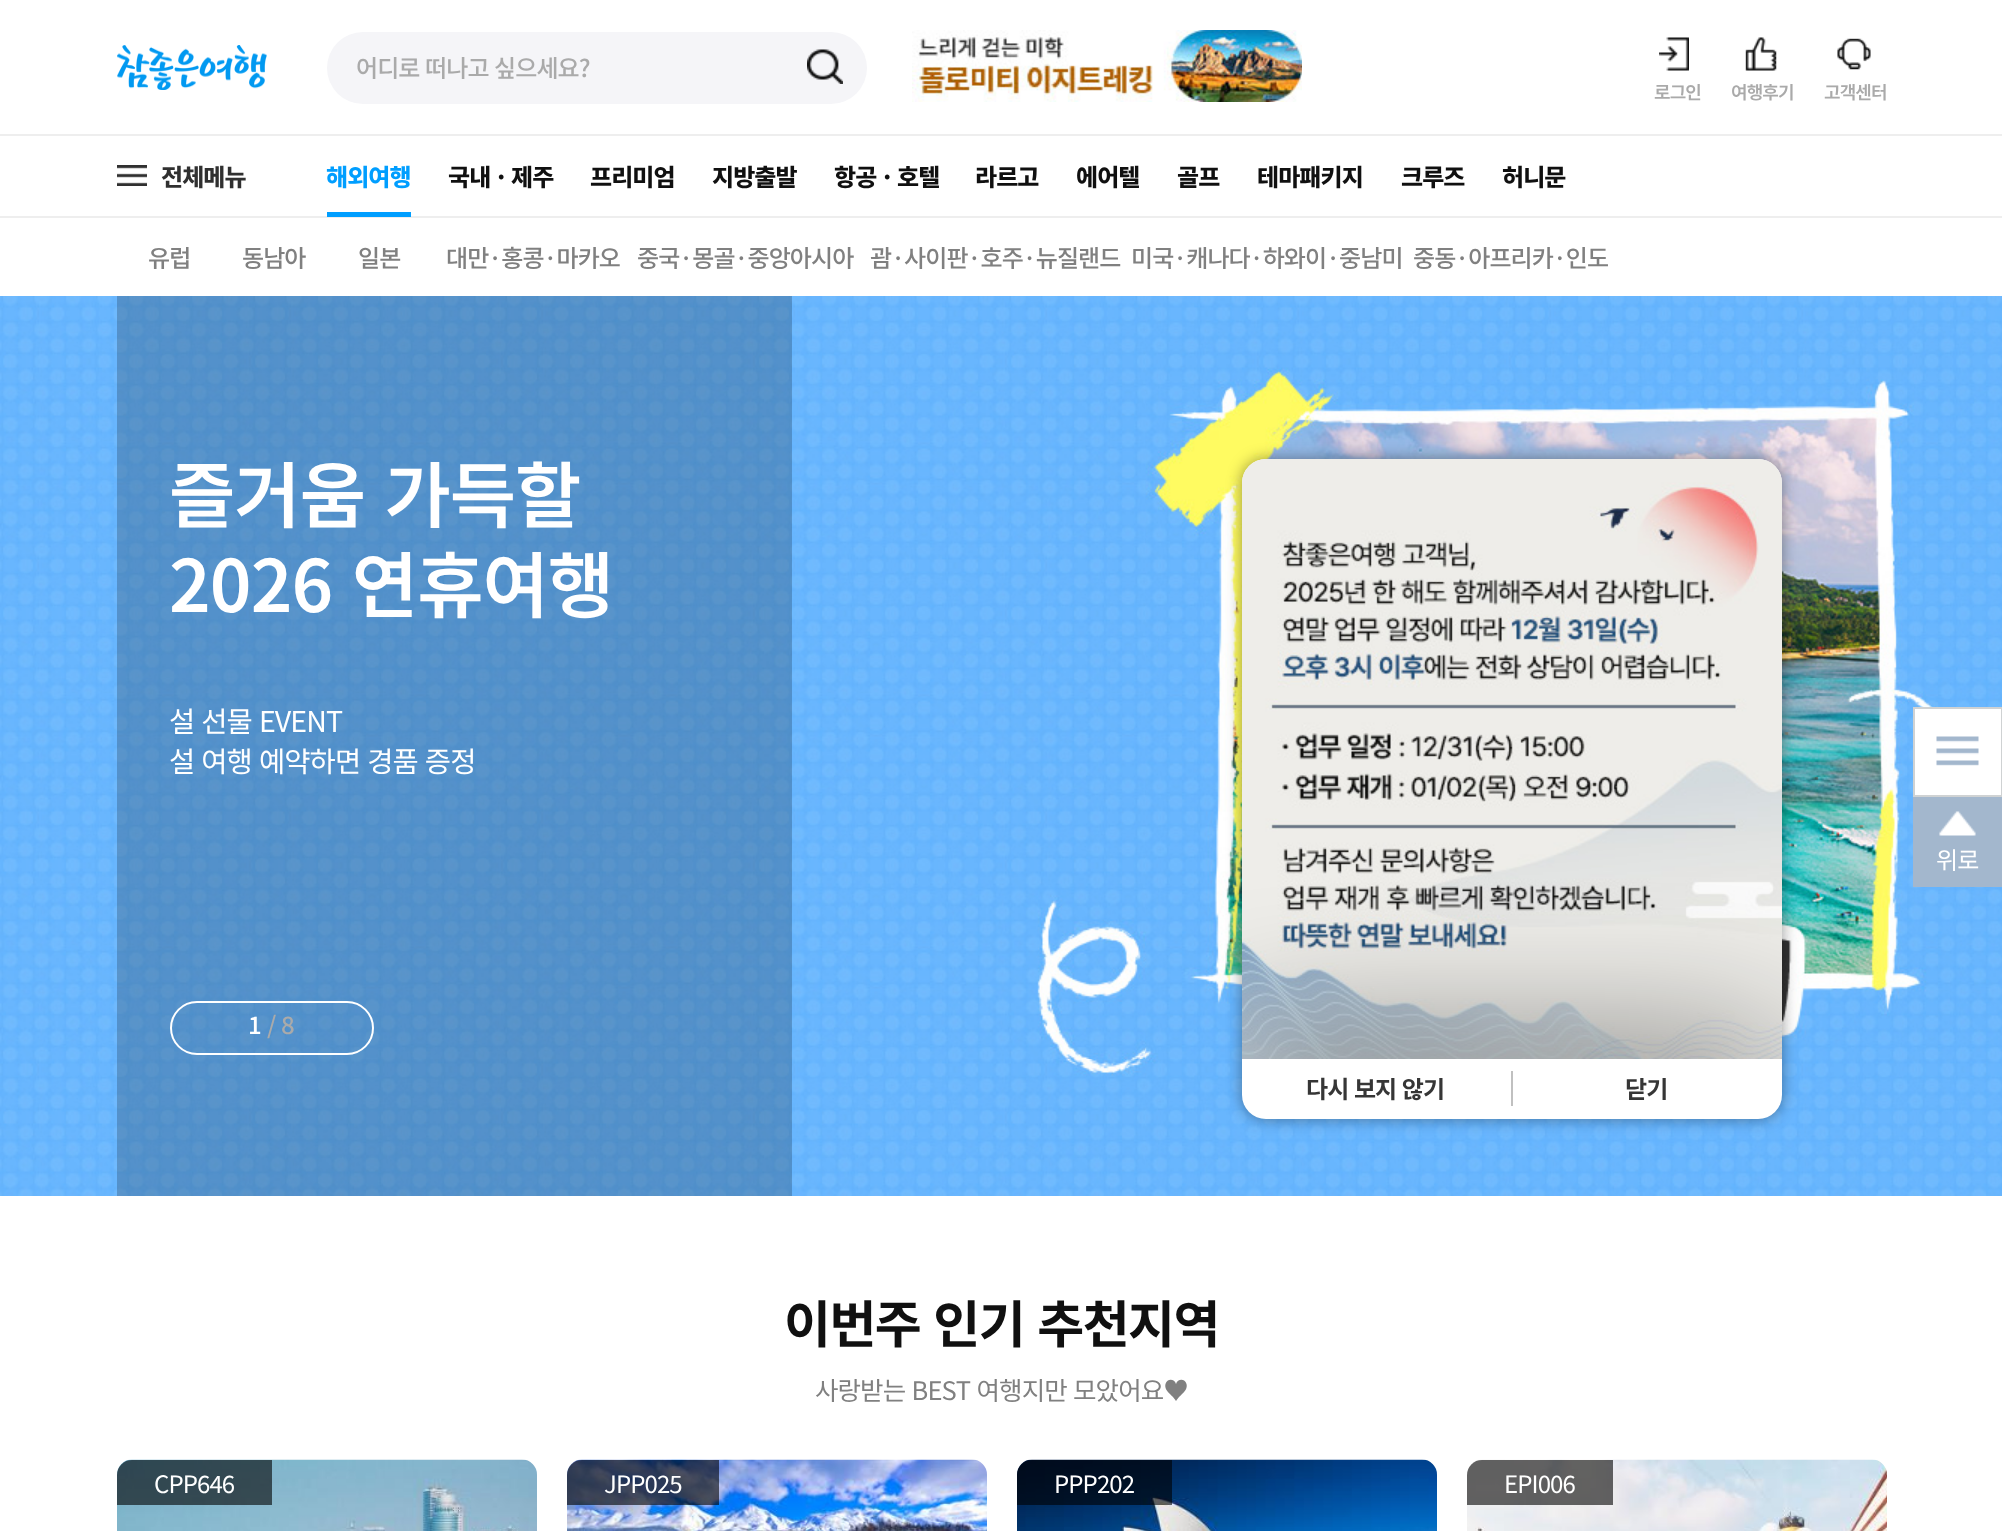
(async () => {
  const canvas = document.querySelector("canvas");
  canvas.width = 2002;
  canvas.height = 1531;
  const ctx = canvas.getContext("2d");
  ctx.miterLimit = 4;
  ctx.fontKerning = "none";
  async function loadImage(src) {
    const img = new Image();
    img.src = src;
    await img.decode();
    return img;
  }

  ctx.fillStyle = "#ffffff";
  ctx.fillRect(0, 0, 2002, 1531);
  ctx.fillStyle = "#eeeeee";
  ctx.fillRect(0, 134, 2002, 2);
  ctx.drawImage(await loadImage("img/1.png"), 117, 45, 150, 45);
  ctx.fillStyle = "#f5f5f8";
  ctx.beginPath();
  ctx.roundRect(327, 32, 540, 72, 36);
  ctx.fill();
  ctx.drawImage(await loadImage("img/2.png"), 807, 49, 36, 35);
  ctx.drawImage(await loadImage("img/3.png"), 912, 30, 390, 72);
  ctx.drawImage(await loadImage("img/4.png"), 1659, 37, 30, 34);
  ctx.drawImage(await loadImage("img/5.png"), 1745, 37, 32, 34);
  ctx.drawImage(await loadImage("img/6.png"), 1837, 38, 34, 32);
  ctx.fillStyle = "#eeeeee";
  ctx.fillRect(0, 216, 2002, 2);
  ctx.drawImage(await loadImage("img/7.png"), 117, 165, 30, 21);
  ctx.fillStyle = "#009eff";
  ctx.fillRect(327, 212, 84, 5);
  ctx.drawImage(await loadImage("img/8.png"), 0, 296, 2002, 900);
  ctx.fillStyle = "rgba(0, 0, 0, 0.2)";
  ctx.fillRect(117, 296, 675, 900);
  ctx.beginPath();
  ctx.roundRect(171, 1002, 202, 52, 26);
  ctx.strokeStyle = "#ffffff";
  ctx.lineWidth = 2;
  ctx.stroke();
  ctx.drawImage(await loadImage("img/9.png"), 117, 1459, 420, 72);
  ctx.fillStyle = "rgba(0, 0, 0, 0.6)";
  ctx.beginPath();
  ctx.roundRect(117, 1460, 155, 45, [15, 0, 0, 0]);
  ctx.fill();
  ctx.drawImage(await loadImage("img/10.png"), 567, 1459, 420, 72);
  ctx.beginPath();
  ctx.roundRect(567, 1460, 152, 45, [15, 0, 0, 0]);
  ctx.fill();
  ctx.drawImage(await loadImage("img/11.png"), 1017, 1459, 420, 72);
  ctx.beginPath();
  ctx.roundRect(1017, 1460, 155, 45, [15, 0, 0, 0]);
  ctx.fill();
  ctx.drawImage(await loadImage("img/12.png"), 1467, 1459, 420, 72);
  ctx.beginPath();
  ctx.roundRect(1467, 1460, 146, 45, [15, 0, 0, 0]);
  ctx.fill();
  ctx.fillStyle = "#ffffff";
  ctx.fillRect(1915, 709, 86, 86);
  ctx.drawImage(await loadImage("img/13.png"), 1936, 736, 43, 30);
  ctx.strokeStyle = "#cfd2d3";
  ctx.strokeRect(1914, 708, 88, 88);
  ctx.fillStyle = "rgba(0, 0, 0, 0.4)";
  ctx.filter = "blur(7.5px)";
  ctx.beginPath();
  ctx.roundRect(1242, 459, 540, 660, 24);
  ctx.fill();
  ctx.filter = "none";
  ctx.fillStyle = "#ffffff";
  ctx.beginPath();
  ctx.roundRect(1242, 459, 540, 660, 24);
  ctx.fill();
  ctx.drawImage(await loadImage("img/15.png"), 1242, 459, 540, 600);
  ctx.fillStyle = "#c0c0c0";
  ctx.fillRect(1511, 1071, 2, 35);
  ctx.save();
  ctx.beginPath();
  ctx.rect(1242, 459, 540, 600);
  ctx.clip();
  ctx.fillStyle = "rgba(0, 0, 0, 0.8)";
  ctx.filter = "blur(75px)";
  ctx.beginPath();
  ctx.rect(1242, 1059, 540, 60);
  ctx.fill();
  ctx.filter = "none";
  ctx.restore();
  ctx.fillStyle = "#a3b7cd";
  ctx.fillRect(1913, 797, 89, 90);
  ctx.drawImage(await loadImage("img/14.png"), 1939, 811, 37, 25);
  ctx.letterSpacing = "-0.9px";
  ctx.wordSpacing = "1px";
  ctx.font = "500 24px Noto Sans KR";
  ctx.fillStyle = "#aaaaaa";
  ctx.fillText("어디로 떠나고 싶으세요?", 356, 77);
  ctx.wordSpacing = "0px";
  ctx.font = "600 18px Noto Sans KR";
  for (const [text, x, y] of [
    ["로그인", 1654, 99],
    ["여행후기", 1731, 99],
    ["고객센터", 1824, 99],
  ]) {
    ctx.fillText(text, x, y);
  }
  ctx.font = "800 24px Noto Sans KR";
  ctx.fillStyle = "#303030";
  ctx.fillText("전체메뉴", 161, 186);
  ctx.fillStyle = "#009eff";
  ctx.fillText("해외여행", 326, 186);
  ctx.wordSpacing = "-1px";
  ctx.fillStyle = "#101010";
  ctx.fillText("국내 · 제주", 448, 186);
  ctx.wordSpacing = "0px";
  ctx.fillText("프리미엄", 590, 186);
  ctx.fillText("지방출발", 712, 186);
  ctx.wordSpacing = "-1px";
  ctx.fillText("항공 · 호텔", 834, 186);
  ctx.wordSpacing = "0px";
  for (const [text, x, y] of [
    ["라르고", 975, 186],
    ["에어텔", 1076, 186],
    ["골프", 1177, 186],
    ["테마패키지", 1257, 186],
    ["크루즈", 1401, 186],
    ["허니문", 1502, 186],
  ]) {
    ctx.fillText(text, x, y);
  }
  ctx.font = "500 24px Noto Sans KR";
  ctx.fillStyle = "#808080";
  for (const [text, x, y] of [
    ["유럽", 148, 267],
    ["동남아", 242, 267],
    ["일본", 358, 267],
    ["대만·홍콩·마카오", 446, 267],
    ["중국·몽골·중앙아시아", 637, 267],
    ["괌·사이판·호주·뉴질랜드", 870, 267],
    ["미국·캐나다·하와이·중남미", 1131, 267],
    ["중동·아프리카·인도", 1413, 267],
  ]) {
    ctx.fillText(text, x, y);
  }
  ctx.wordSpacing = "4px";
  ctx.font = "600 72px Noto Sans KR";
  ctx.fillStyle = "#ffffff";
  ctx.fillText("즐거움 가득할", 169, 522);
  ctx.fillText("2026 연휴여행", 169, 612);
  ctx.wordSpacing = "1.5px";
  ctx.font = "28.5px Noto Sans KR";
  ctx.fillText("설 선물 EVENT", 169, 732);
  ctx.fillText("설 여행 예약하면 경품 증정", 169, 772);
  ctx.wordSpacing = "0px";
  ctx.font = "500 24px Noto Sans KR";
  ctx.fillText("1", 248, 1034);
  ctx.fillStyle = "#aaaaaa";
  ctx.fillText("/", 267, 1034);
  ctx.fillText("8", 281, 1034);
  ctx.letterSpacing = "-1.5px";
  ctx.wordSpacing = "3px";
  ctx.font = "bold 51px Noto Sans KR";
  ctx.fillStyle = "#101010";
  ctx.fillText("이번주 인기 추천지역", 784, 1343);
  ctx.letterSpacing = "-0.9px";
  ctx.wordSpacing = "1.5px";
  ctx.font = "25.5px Noto Sans KR";
  ctx.fillStyle = "#808080";
  ctx.fillText("사랑받는 BEST 여행지만 모았어요♥", 815, 1400);
  ctx.wordSpacing = "0px";
  ctx.font = "24px Noto Sans KR";
  ctx.fillStyle = "#ffffff";
  for (const [text, x, y] of [
    ["CPP646", 154, 1493],
    ["JPP025", 604, 1493],
    ["PPP202", 1054, 1493],
    ["EPI006", 1504, 1493],
    ["위로", 1936, 869],
  ]) {
    ctx.fillText(text, x, y);
  }
  ctx.wordSpacing = "1px";
  ctx.font = "bold 24px Noto Sans KR";
  ctx.fillStyle = "#363636";
  ctx.fillText("다시 보지 않기", 1306, 1098);
  ctx.wordSpacing = "0px";
  ctx.fillText("닫기", 1625, 1098);
})();
